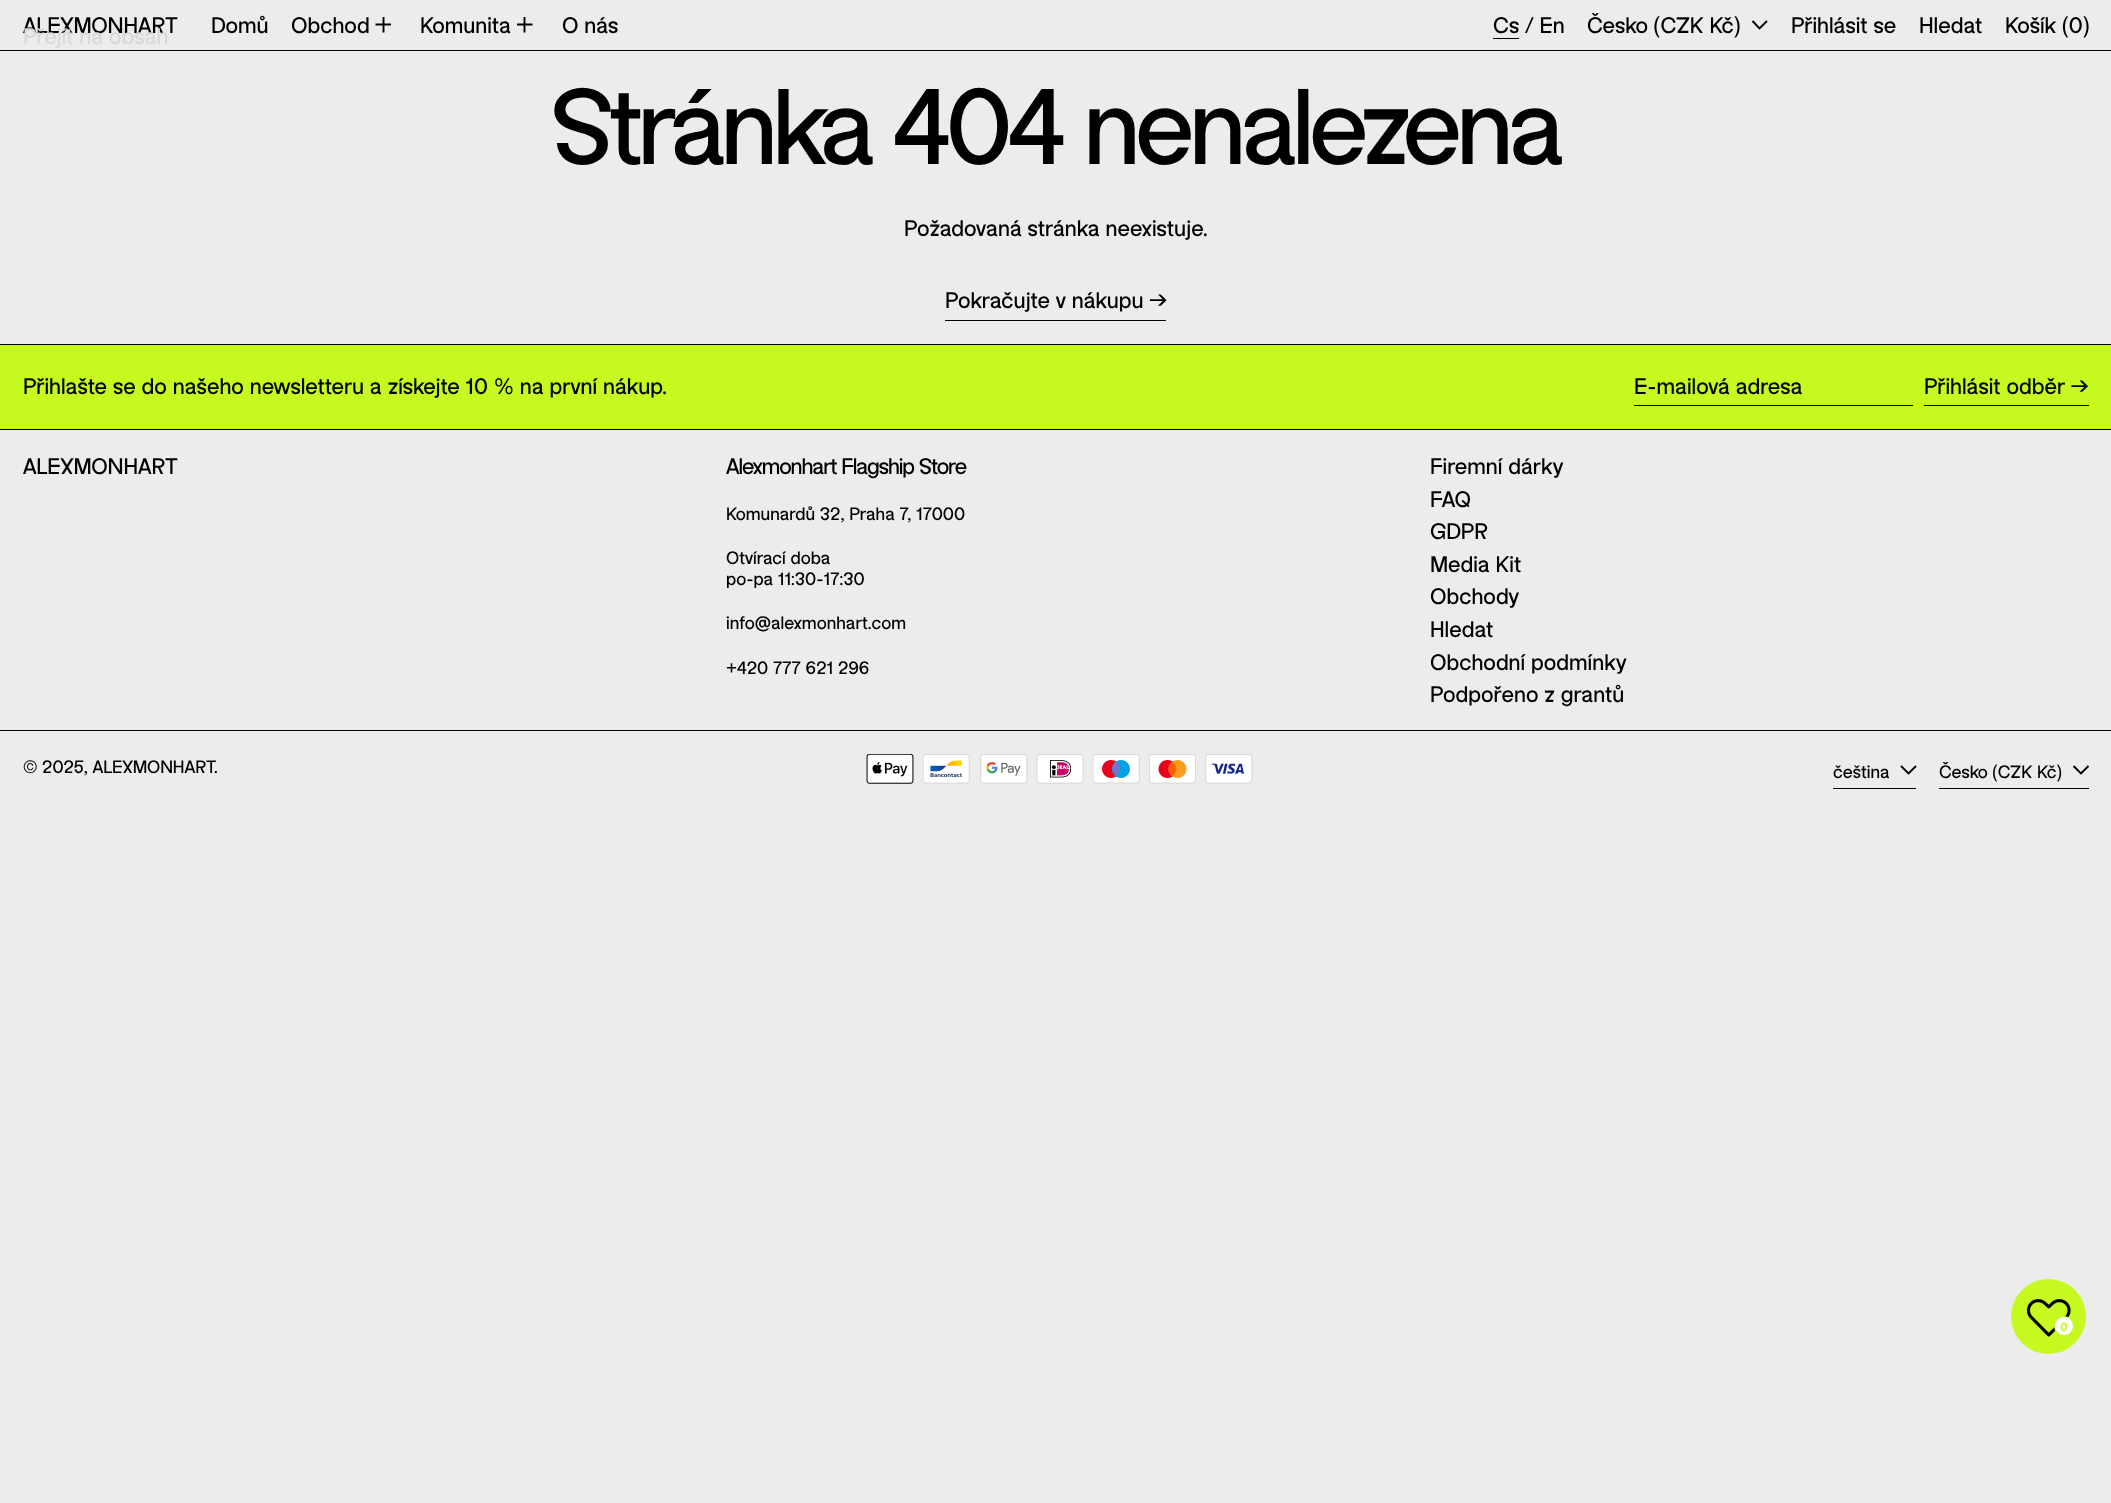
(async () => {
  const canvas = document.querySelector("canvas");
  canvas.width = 2111;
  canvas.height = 1503;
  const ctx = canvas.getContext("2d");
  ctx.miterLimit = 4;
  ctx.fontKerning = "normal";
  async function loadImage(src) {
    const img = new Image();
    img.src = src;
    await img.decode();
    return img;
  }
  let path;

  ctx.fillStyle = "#ececec";
  ctx.fillRect(0, 0, 2111, 1503);
  ctx.fillStyle = "#000000";
  ctx.fillRect(0, 50, 2111, 1);
  path = new Path2D("M383.5 17V32.5M375.5 24.5H391");
  ctx.strokeStyle = "#000000";
  ctx.lineWidth = 1.9;
  ctx.stroke(path);
  path = new Path2D("M524.5 17V32.5M517 24.5H532.5");
  ctx.stroke(path);
  ctx.fillRect(1493, 38, 26, 1);
  path = new Path2D("M1752.5 21L1759.5 28.5L1767 21");
  ctx.stroke(path);
  for (const [x, y, w, h, color] of [
    [0, 344, 2111, 1, "#000000"],
    [945, 320, 221, 1, "#000000"],
    [0, 345, 2111, 84, "#c6f91f"],
    [0, 429, 2111, 1, "#000000"],
    [1634, 405, 279, 1, "#000000"],
    [1924, 405, 165, 1, "#000000"],
    [0, 730, 2111, 1, "#000000"],
  ]) {
    ctx.fillStyle = color;
    ctx.fillRect(x, y, w, h);
  }
  ctx.drawImage(await loadImage("img/1.png"), 866, 754, 48, 30);
  ctx.drawImage(await loadImage("img/2.png"), 923, 754, 47, 30);
  ctx.drawImage(await loadImage("img/3.png"), 980, 754, 48, 30);
  ctx.drawImage(await loadImage("img/4.png"), 1036, 754, 48, 30);
  ctx.drawImage(await loadImage("img/5.png"), 1093, 754, 47, 30);
  ctx.drawImage(await loadImage("img/6.png"), 1149, 754, 47, 30);
  ctx.drawImage(await loadImage("img/7.png"), 1205, 754, 48, 30);
  ctx.fillRect(1833, 788, 83, 1);
  path = new Path2D("M1901 766L1908.5 773.5L1916 766");
  ctx.stroke(path);
  ctx.fillRect(1939, 788, 150, 1);
  path = new Path2D("M2073.5 766L2081 773.5L2088.5 766");
  ctx.stroke(path);
  ctx.fillStyle = "#c6f91f";
  ctx.beginPath();
  ctx.arc(2048.5, 1316.5, 37.5, 0, Math.PI * 2);
  ctx.fill();
  ctx.drawImage(await loadImage("img/8.png"), 2026, 1299, 45, 38);
  ctx.fillStyle = "#ffffff";
  ctx.beginPath();
  ctx.arc(2064, 1326, 9.5, 0, Math.PI * 2);
  ctx.fill();
  ctx.strokeStyle = "#c6f91f";
  ctx.lineWidth = 1;
  ctx.stroke();
  ctx.font = "22.5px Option";
  ctx.fillStyle = "#000000";
  for (const [text, x, y] of [
    ["ALEXMONHART", 23, 33],
    ["Domů", 211, 33],
    ["Obchod", 291, 33],
    ["Komunita", 420, 33],
    ["O nás", 562, 33],
    ["Cs", 1493, 33],
    ["/ En", 1525, 33],
    ["Česko (CZK Kč)", 1587, 33],
    ["Přihlásit se", 1791, 33],
    ["Hledat", 1919, 33],
    ["Košík (0)", 2005, 33],
  ]) {
    ctx.fillText(text, x, y);
  }
  ctx.fillStyle = "#d8d8d8";
  ctx.fillText("Přejít na obsah", 23, 44);
  ctx.letterSpacing = "-5.4px";
  ctx.font = "107.25px Option";
  ctx.fillStyle = "#000000";
  ctx.fillText("Stránka 404 nenalezena", 550, 164);
  ctx.letterSpacing = "0px";
  ctx.font = "22.5px Option";
  for (const [text, x, y] of [
    ["Požadovaná stránka neexistuje.", 904, 236],
    ["Pokračujte v nákupu →", 945, 308],
    ["Přihlašte se do našeho newsletteru a získejte 10 % na první nákup.", 23, 394],
    ["E-mailová adresa", 1634, 394],
    ["Přihlásit odběr →", 1924, 394],
    ["ALEXMONHART", 23, 474],
  ]) {
    ctx.fillText(text, x, y);
  }
  ctx.letterSpacing = "-1.1px";
  ctx.fillText("Alexmonhart Flagship Store", 726, 474);
  ctx.letterSpacing = "0px";
  ctx.font = "18px Option";
  for (const [text, x, y] of [
    ["Komunardů 32, Praha 7, 17000", 726, 520],
    ["Otvírací doba", 726, 564],
    ["po-pa 11:30-17:30", 726, 585],
    ["info@alexmonhart.com", 726, 629],
    ["+420 777 621 296", 726, 674],
  ]) {
    ctx.fillText(text, x, y);
  }
  ctx.font = "22.5px Option";
  for (const [text, x, y] of [
    ["Firemní dárky", 1430, 474],
    ["FAQ", 1430, 507],
    ["GDPR", 1430, 539],
    ["Media Kit", 1430, 572],
    ["Obchody", 1430, 604],
    ["Hledat", 1430, 637],
    ["Obchodní podmínky", 1430, 670],
    ["Podpořeno z grantů", 1430, 702],
  ]) {
    ctx.fillText(text, x, y);
  }
  ctx.font = "18px Option";
  for (const [text, x, y] of [
    ["© 2025, ALEXMONHART", 23, 773],
    [".", 214, 773],
    ["čeština", 1833, 778],
    ["Česko (CZK Kč)", 1939, 778],
  ]) {
    ctx.fillText(text, x, y);
  }
  ctx.font = "bold 12px Option";
  ctx.fillStyle = "#c6f91f";
  ctx.fillText("0", 2060, 1331);
})();
